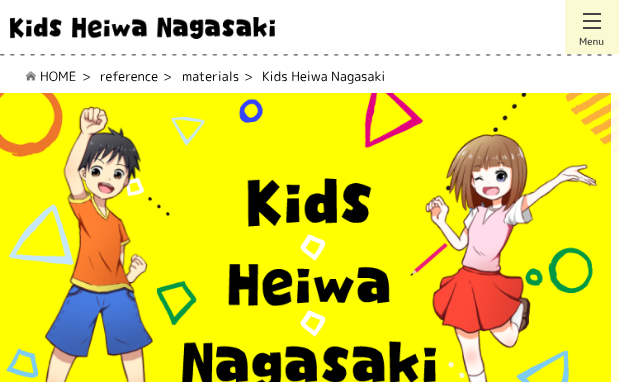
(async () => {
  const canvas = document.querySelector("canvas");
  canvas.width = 619;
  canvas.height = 382;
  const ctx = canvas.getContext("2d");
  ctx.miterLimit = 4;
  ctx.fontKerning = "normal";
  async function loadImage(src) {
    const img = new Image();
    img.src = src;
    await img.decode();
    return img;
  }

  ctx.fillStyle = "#ffffff";
  ctx.fillRect(0, 0, 619, 382);
  ctx.drawImage(await loadImage("img/1.png"), 10, 17, 265, 22);
  for (const [x, y, w, h, color] of [
    [565, 0, 54, 54, "#fbfbd3"],
    [583, 13, 18, 2, "#444444"],
    [583, 20, 18, 2, "#444444"],
    [583, 27, 18, 2, "#444444"],
  ]) {
    ctx.fillStyle = color;
    ctx.fillRect(x, y, w, h);
  }
  ctx.drawImage(await loadImage("img/2.png"), 0, 54, 613, 2);
  ctx.drawImage(await loadImage("img/3.png"), 25, 71, 11, 10);
  ctx.fillStyle = "#ffff01";
  ctx.fillRect(4, 93, 615, 1);
  ctx.drawImage(await loadImage("img/4.png"), 0, 93, 619, 289);
  ctx.fillStyle = "rgba(255, 255, 255, 0.9)";
  ctx.fillRect(611, 93, 8, 289);
  ctx.font = "500 10px 'Rounded Mplus 1c'";
  ctx.fillStyle = "#444444";
  ctx.fillText("Menu", 579, 45);
  ctx.font = "13px 'Rounded Mplus 1c'";
  ctx.fillStyle = "#000000";
  for (const [text, x, y] of [
    ["HOME", 40, 81],
    [">", 82, 81],
    ["reference", 100, 81],
    [">", 163, 81],
    ["materials", 182, 81],
    [">", 244, 81],
    ["Kids Heiwa Nagasaki", 262, 81],
  ]) {
    ctx.fillText(text, x, y);
  }
})();
